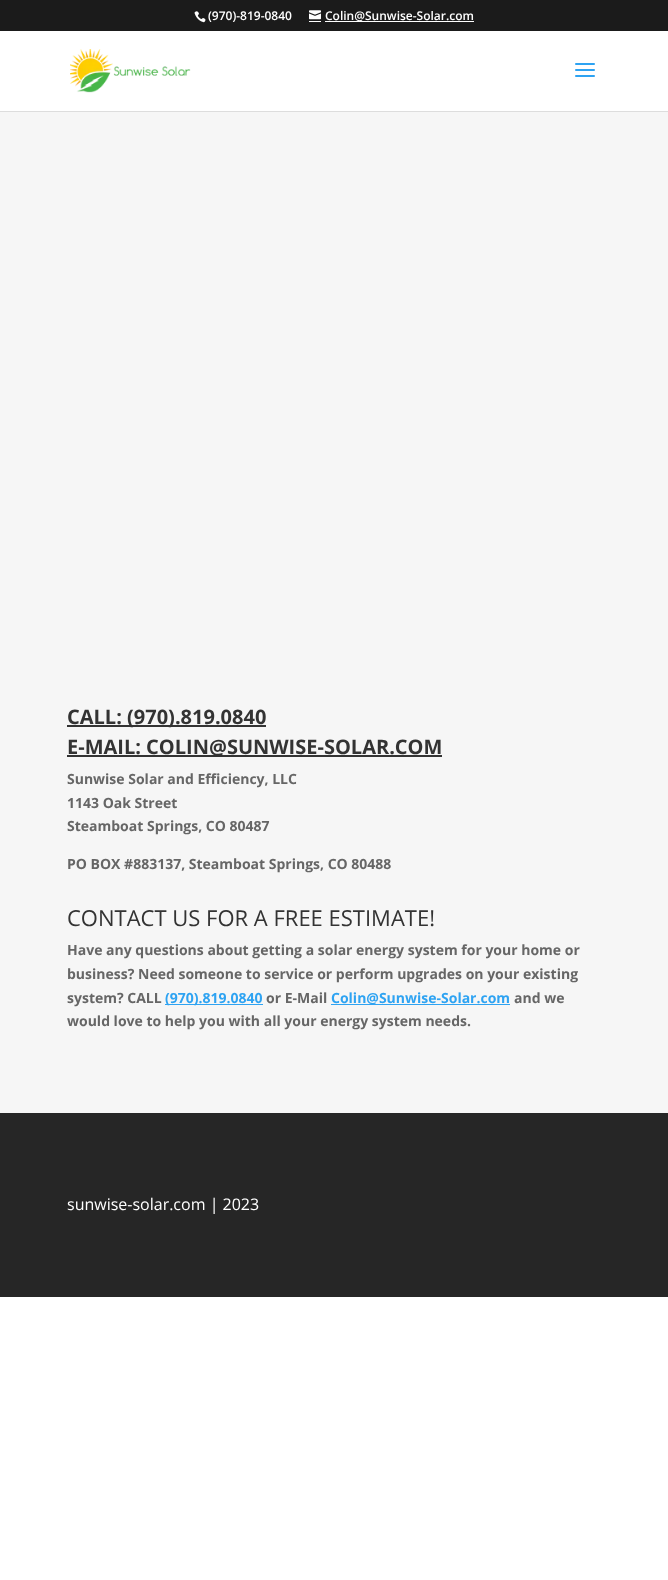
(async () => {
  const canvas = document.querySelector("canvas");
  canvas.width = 668;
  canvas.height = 1580;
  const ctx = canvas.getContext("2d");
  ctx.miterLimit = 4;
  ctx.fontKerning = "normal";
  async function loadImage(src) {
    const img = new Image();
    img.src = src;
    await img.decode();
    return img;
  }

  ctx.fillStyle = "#ffffff";
  ctx.fillRect(0, 0, 668, 1580);
  ctx.fillStyle = "#1b1b1b";
  ctx.fillRect(0, 0, 668, 31);
  ctx.drawImage(await loadImage("img/1.png"), 194, 11, 12, 12);
  ctx.drawImage(await loadImage("img/2.png"), 309, 10, 12, 10);
  for (const [x, y, w, h, color] of [
    [309, 21, 12, 1, "#ffffff"],
    [325, 21, 149, 1, "#ffffff"],
    [0, 111, 668, 1, "#dddddd"],
  ]) {
    ctx.fillStyle = color;
    ctx.fillRect(x, y, w, h);
  }
  ctx.drawImage(await loadImage("img/3.png"), 70, 49, 121, 44);
  ctx.drawImage(await loadImage("img/4.png"), 575, 63, 20, 14);
  for (const [x, y, w, h, color] of [
    [0, 112, 668, 1001, "#f6f6f6"],
    [67, 725, 199, 2, "#333333"],
    [67, 755, 375, 2, "#333333"],
    [165, 1004, 98, 1, "#2ea3f2"],
    [331, 1004, 179, 1, "#2ea3f2"],
    [0, 1113, 668, 184, "#262626"],
  ]) {
    ctx.fillStyle = color;
    ctx.fillRect(x, y, w, h);
  }
  ctx.font = "600 12px Open Sans";
  ctx.fillStyle = "#ffffff";
  ctx.fillText("(970)-819-0840", 208, 20);
  ctx.fillText("Colin@Sunwise-Solar.com", 325, 20);
  ctx.font = "bold 20px Open Sans";
  ctx.fillStyle = "#333333";
  ctx.fillText("CALL: (970).819.0840", 67, 724);
  ctx.fillText("E-MAIL: COLIN@SUNWISE-SOLAR.COM", 67, 754);
  ctx.font = "bold 14px Open Sans";
  ctx.fillStyle = "#666666";
  for (const [text, x, y] of [
    ["Sunwise Solar and Efficiency, LLC", 67, 784],
    ["1143 Oak Street", 67, 808],
    ["Steamboat Springs, CO 80487", 67, 831],
    ["PO BOX #883137, Steamboat Springs, CO 80488", 67, 869],
  ]) {
    ctx.fillText(text, x, y);
  }
  ctx.font = "22px Open Sans";
  ctx.fillStyle = "#333333";
  ctx.fillText("CONTACT US FOR A FREE ESTIMATE!", 67, 926);
  ctx.font = "bold 14px Open Sans";
  ctx.fillStyle = "#666666";
  for (const [text, x, y] of [
    ["Have any questions about getting a solar energy system for your home or", 67, 955],
    ["business? Need someone to service or perform upgrades on your existing", 67, 979],
    ["system? CALL", 67, 1003],
  ]) {
    ctx.fillText(text, x, y);
  }
  ctx.fillStyle = "#2ea3f2";
  ctx.fillText("(970).819.0840", 165, 1003);
  ctx.fillStyle = "#666666";
  ctx.fillText("or E-Mail", 266, 1003);
  ctx.fillStyle = "#2ea3f2";
  ctx.fillText("Colin@Sunwise-Solar.com", 331, 1003);
  ctx.fillStyle = "#666666";
  ctx.fillText("and we", 514, 1003);
  ctx.fillText("would love to help you with all your energy system needs.", 67, 1026);
  ctx.font = "16px Open Sans";
  ctx.fillStyle = "#ffffff";
  ctx.fillText("sunwise-solar.com | 2023", 67, 1210);
})();
